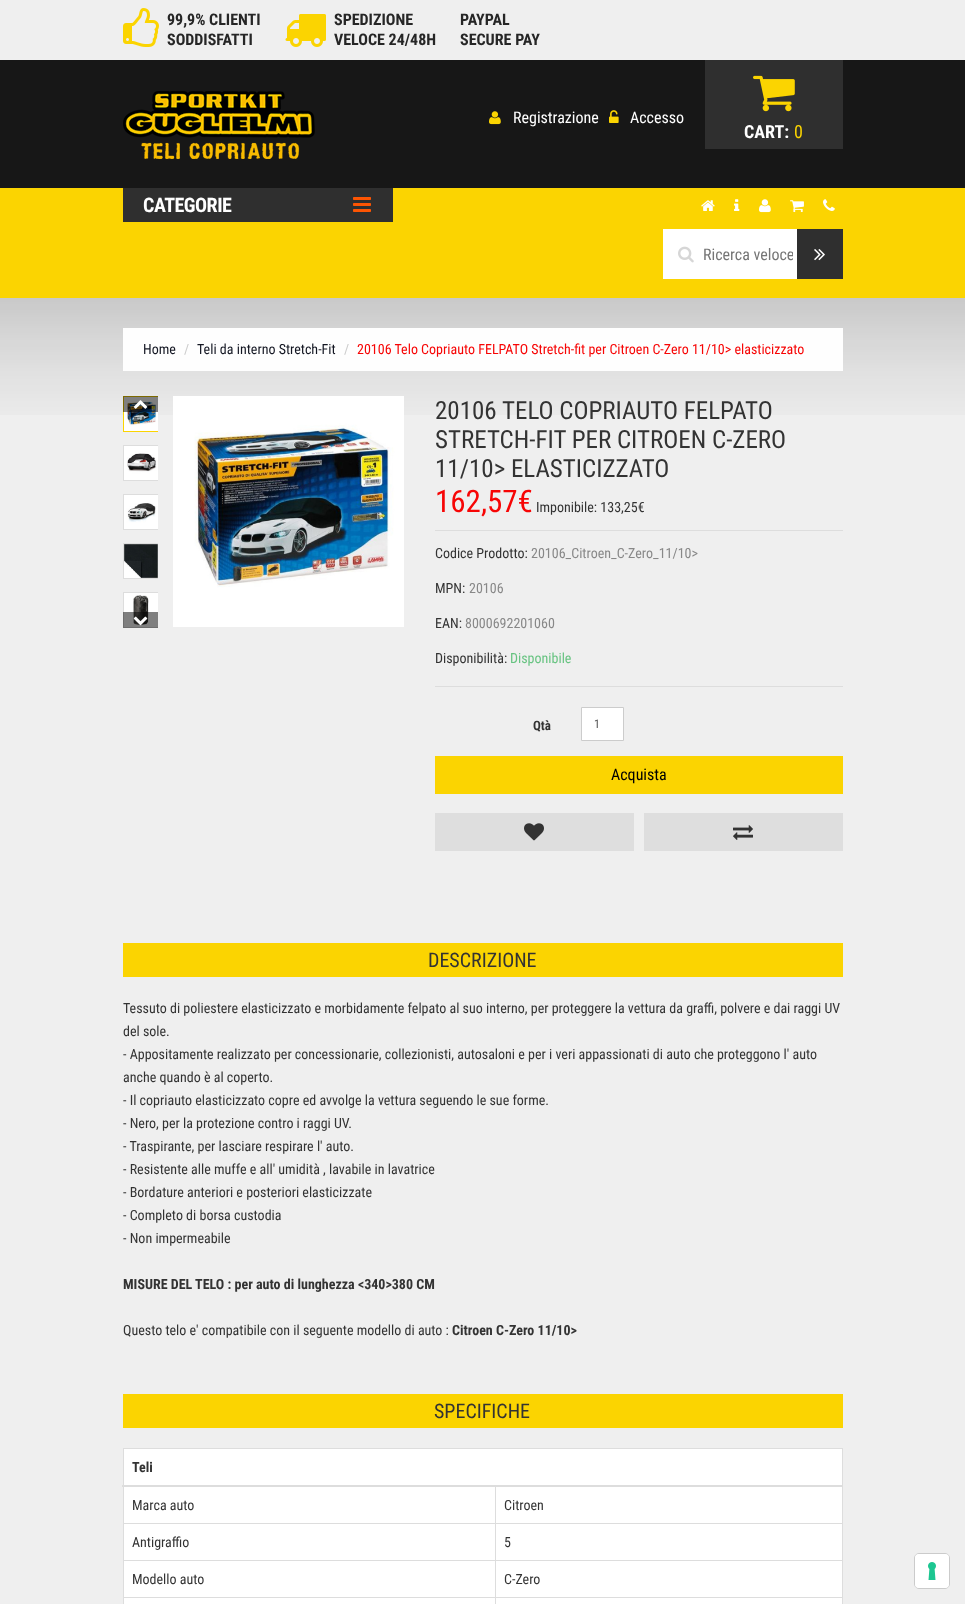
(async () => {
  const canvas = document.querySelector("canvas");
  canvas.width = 965;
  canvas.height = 1604;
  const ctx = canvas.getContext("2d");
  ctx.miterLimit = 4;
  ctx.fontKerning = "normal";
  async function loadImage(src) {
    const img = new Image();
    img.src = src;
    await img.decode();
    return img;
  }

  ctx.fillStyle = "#efefef";
  ctx.fillRect(0, 0, 965, 1604);
  ctx.drawImage(await loadImage("img/1.png"), 0, 298, 965, 117);
  ctx.drawImage(await loadImage("img/2.png"), 123, 8, 36, 39);
  ctx.drawImage(await loadImage("img/3.png"), 285, 14, 41, 33);
  ctx.fillStyle = "#171717";
  ctx.fillRect(0, 60, 965, 128);
  ctx.drawImage(await loadImage("img/4.png"), 123, 91, 192, 68);
  ctx.drawImage(await loadImage("img/5.png"), 489, 111, 12, 14);
  ctx.drawImage(await loadImage("img/6.png"), 609, 110, 10, 13);
  ctx.fillStyle = "#2f2f2f";
  ctx.fillRect(705, 60, 138, 89);
  ctx.drawImage(await loadImage("img/7.png"), 753, 75, 42, 37);
  ctx.fillStyle = "#fbd401";
  ctx.fillRect(0, 188, 965, 110);
  ctx.fillStyle = "#2f2f2f";
  ctx.fillRect(123, 188, 270, 34);
  ctx.drawImage(await loadImage("img/8.png"), 353, 197, 18, 15);
  ctx.drawImage(await loadImage("img/9.png"), 701, 200, 14, 11);
  ctx.drawImage(await loadImage("img/10.png"), 734, 199, 6, 12);
  ctx.drawImage(await loadImage("img/11.png"), 759, 199, 12, 14);
  ctx.drawImage(await loadImage("img/12.png"), 790, 200, 14, 13);
  ctx.drawImage(await loadImage("img/13.png"), 823, 199, 12, 12);
  ctx.fillStyle = "#ffffff";
  ctx.fillRect(663, 229, 134, 50);
  ctx.drawImage(await loadImage("img/14.png"), 678, 246, 16, 17);
  ctx.fillStyle = "#2f2f2f";
  ctx.fillRect(797, 229, 46, 50);
  ctx.drawImage(await loadImage("img/15.png"), 814, 249, 11, 12);
  ctx.fillStyle = "#fefefe";
  ctx.fillRect(123, 328, 720, 43);
  ctx.save();
  ctx.beginPath();
  ctx.rect(123, 396, 35, 232);
  ctx.clip();
  ctx.strokeStyle = "#fbd401";
  ctx.strokeRect(123.5, 396.5, 35, 35);
  ctx.restore();
  ctx.drawImage(await loadImage("img/16.png"), 124, 397, 34, 34);
  ctx.save();
  ctx.beginPath();
  ctx.rect(123, 396, 35, 232);
  ctx.clip();
  ctx.strokeStyle = "#dddddd";
  ctx.strokeRect(123.5, 445.5, 35, 35);
  ctx.restore();
  ctx.drawImage(await loadImage("img/17.png"), 124, 446, 34, 34);
  ctx.save();
  ctx.beginPath();
  ctx.rect(123, 396, 35, 232);
  ctx.clip();
  ctx.strokeStyle = "#dddddd";
  ctx.strokeRect(123.5, 494.5, 35, 35);
  ctx.restore();
  ctx.drawImage(await loadImage("img/18.png"), 124, 495, 34, 34);
  ctx.save();
  ctx.beginPath();
  ctx.rect(123, 396, 35, 232);
  ctx.clip();
  ctx.strokeStyle = "#dddddd";
  ctx.strokeRect(123.5, 543.5, 35, 35);
  ctx.restore();
  ctx.drawImage(await loadImage("img/19.png"), 124, 544, 34, 34);
  ctx.save();
  ctx.beginPath();
  ctx.rect(123, 396, 35, 232);
  ctx.clip();
  ctx.strokeStyle = "#dddddd";
  ctx.strokeRect(123.5, 592.5, 35, 35);
  ctx.restore();
  ctx.drawImage(await loadImage("img/20.png"), 124, 593, 34, 34);
  ctx.fillStyle = "rgba(0, 0, 0, 0.5)";
  ctx.fillRect(123, 396, 35, 16);
  ctx.drawImage(await loadImage("img/21.png"), 133, 400, 15, 9);
  ctx.fillRect(123, 612, 35, 16);
  ctx.drawImage(await loadImage("img/22.png"), 133, 616, 15, 10);
  ctx.drawImage(await loadImage("img/23.png"), 173, 396, 231, 231);
  ctx.fillStyle = "#dddddd";
  ctx.fillRect(435, 530, 408, 1);
  ctx.fillRect(435, 686, 408, 1);
  ctx.fillStyle = "#ffffff";
  ctx.beginPath();
  ctx.rect(581.5, 707.5, 42, 33);
  ctx.fill();
  ctx.strokeStyle = "#cccccc";
  ctx.stroke();
  ctx.fillStyle = "#fbd401";
  ctx.fillRect(435, 756, 408, 38);
  ctx.fillStyle = "#dedede";
  ctx.fillRect(435, 813, 199, 38);
  ctx.drawImage(await loadImage("img/24.png"), 524, 823, 20, 18);
  ctx.fillRect(644, 813, 199, 38);
  ctx.drawImage(await loadImage("img/25.png"), 733, 825, 20, 15);
  for (const [x, y, w, h, color] of [
    [123, 943, 720, 34, "#fbd401"],
    [123, 1394, 720, 34, "#fbd401"],
    [124, 1449, 718, 155, "#ffffff"],
    [123, 1448, 720, 1, "#dddddd"],
    [495, 1523, 348, 1, "#dddddd"],
    [495, 1560, 348, 1, "#dddddd"],
    [495, 1597, 348, 1, "#dddddd"],
    [842, 1597, 1, 7, "#dddddd"],
    [842, 1560, 1, 38, "#dddddd"],
    [842, 1486, 1, 75, "#dddddd"],
    [842, 1448, 1, 39, "#dddddd"],
    [495, 1597, 1, 7, "#dddddd"],
    [123, 1597, 373, 1, "#dddddd"],
    [495, 1560, 1, 38, "#dddddd"],
    [123, 1560, 373, 1, "#dddddd"],
    [495, 1523, 1, 38, "#dddddd"],
    [123, 1523, 373, 1, "#dddddd"],
    [123, 1597, 1, 7, "#dddddd"],
    [123, 1560, 1, 38, "#dddddd"],
    [123, 1486, 1, 75, "#dddddd"],
    [123, 1448, 1, 39, "#dddddd"],
    [495, 1486, 1, 38, "#dddddd"],
    [122, 1485, 721, 2, "#dddddd"],
  ]) {
    ctx.fillStyle = color;
    ctx.fillRect(x, y, w, h);
  }
  ctx.beginPath();
  ctx.roundRect(914.5, 1553.5, 35, 35, 4.5);
  ctx.strokeStyle = "#cbcbcb";
  ctx.stroke();
  ctx.fillStyle = "#ffffff";
  ctx.beginPath();
  ctx.roundRect(915, 1554, 34, 34, 4);
  ctx.fill();
  ctx.drawImage(await loadImage("img/26.png"), 928, 1562, 8, 18);
  ctx.font = "bold 16px Roboto Condensed";
  ctx.fillStyle = "#262626";
  for (const [text, x, y] of [
    ["99,9% CLIENTI", 167, 25],
    ["SODDISFATTI", 167, 45],
    ["SPEDIZIONE", 334, 25],
    ["VELOCE 24/48H", 334, 45],
    ["PAYPAL", 460, 25],
    ["SECURE PAY", 460, 45],
  ]) {
    ctx.fillText(text, x, y);
  }
  ctx.font = "16px Roboto Condensed";
  ctx.fillStyle = "#ffffff";
  ctx.fillText("Registrazione", 513, 123);
  ctx.fillText("Accesso", 630, 123);
  ctx.font = "bold 18px Roboto Condensed";
  ctx.fillText("CART:", 744, 138);
  ctx.font = "18px Roboto Condensed";
  ctx.fillStyle = "#fbd401";
  ctx.fillText("0", 794, 138);
  ctx.letterSpacing = "-0.5px";
  ctx.font = "bold 20px Roboto Condensed";
  ctx.fillStyle = "#ffffff";
  ctx.fillText("CATEGORIE", 143, 212);
  ctx.save();
  ctx.beginPath();
  ctx.rect(703, 245, 90, 19);
  ctx.clip();
  ctx.letterSpacing = "0px";
  ctx.font = "16px Roboto Condensed";
  ctx.fillStyle = "#757575";
  ctx.fillText("Ricerca veloce", 703, 260);
  ctx.restore();
  ctx.letterSpacing = "0px";
  ctx.font = "14px Roboto Condensed";
  ctx.fillStyle = "#131622";
  ctx.fillText("Home", 143, 354);
  ctx.fillStyle = "#cccccc";
  ctx.fillText("/", 184, 354);
  ctx.fillStyle = "#131622";
  ctx.fillText("Teli da interno Stretch-Fit", 197, 354);
  ctx.fillStyle = "#cccccc";
  ctx.fillText("/", 344, 354);
  ctx.fillStyle = "#f70505";
  ctx.fillText("20106 Telo Copriauto FELPATO Stretch-fit per Citroen C-Zero 11/10> elasticizzato", 357, 354);
  ctx.font = "25px Roboto Condensed";
  ctx.fillStyle = "#333333";
  for (const [text, x, y] of [
    ["20106 TELO COPRIAUTO FELPATO", 435, 419],
    ["STRETCH-FIT PER CITROEN C-ZERO", 435, 448],
    ["11/10> ELASTICIZZATO", 435, 477],
  ]) {
    ctx.fillText(text, x, y);
  }
  ctx.font = "31px Roboto Condensed";
  ctx.fillStyle = "#f70505";
  ctx.fillText("162,57€", 435, 512);
  ctx.font = "14px Roboto Condensed";
  ctx.fillStyle = "#333333";
  ctx.fillText("Imponibile: 133,25€", 536, 512);
  ctx.fillText("Codice Prodotto:", 435, 558);
  ctx.fillStyle = "#888888";
  ctx.fillText("20106_Citroen_C-Zero_11/10>", 531, 558);
  ctx.fillStyle = "#333333";
  ctx.fillText("MPN:", 435, 593);
  ctx.fillStyle = "#888888";
  ctx.fillText("20106", 469, 593);
  ctx.fillStyle = "#333333";
  ctx.fillText("EAN:", 435, 628);
  ctx.fillStyle = "#888888";
  ctx.fillText("8000692201060", 465, 628);
  ctx.fillStyle = "#333333";
  ctx.fillText("Disponibilità:", 435, 663);
  ctx.fillStyle = "#67c381";
  ctx.fillText("Disponibile", 510, 663);
  ctx.font = "bold 13px Roboto Condensed";
  ctx.fillStyle = "#333333";
  ctx.fillText("Qtà", 533, 730);
  ctx.font = "12px Roboto Condensed";
  ctx.fillStyle = "#555555";
  ctx.fillText("1", 594, 728);
  ctx.font = "16px Roboto Condensed";
  ctx.fillStyle = "#000000";
  ctx.fillText("Acquista", 611, 780);
  ctx.font = "20px Roboto Condensed";
  ctx.fillStyle = "#333333";
  ctx.fillText("DESCRIZIONE", 428, 967);
  ctx.font = "14px Roboto Condensed";
  for (const [text, x, y] of [
    ["Tessuto di poliestere elasticizzato e morbidamente felpato al suo interno, per proteggere la vettura da graffi, polvere e dai raggi UV", 123, 1013],
    ["del sole.", 123, 1036],
    ["- Appositamente realizzato per concessionarie, collezionisti, autosaloni e per i veri appassionati di auto che proteggono l' auto", 123, 1059],
    ["anche quando è al coperto.", 123, 1082],
    ["- Il copriauto elasticizzato copre ed avvolge la vettura seguendo le sue forme.", 123, 1105],
    ["- Nero, per la protezione contro i raggi UV.", 123, 1128],
    ["- Traspirante, per lasciare respirare l' auto.", 123, 1151],
    ["- Resistente alle muffe e all' umidità , lavabile in lavatrice", 123, 1174],
    ["- Bordature anteriori e posteriori elasticizzate", 123, 1197],
    ["- Completo di borsa custodia", 123, 1220],
    ["- Non impermeabile", 123, 1243],
  ]) {
    ctx.fillText(text, x, y);
  }
  ctx.font = "bold 14px Roboto Condensed";
  ctx.fillText("MISURE DEL TELO : per auto di lunghezza <340>380 CM", 123, 1289);
  ctx.font = "14px Roboto Condensed";
  ctx.fillText("Questo telo e' compatibile con il seguente modello di auto :", 123, 1335);
  ctx.font = "bold 14px Roboto Condensed";
  ctx.fillText("Citroen C-Zero 11/10>", 452, 1335);
  ctx.font = "20px Roboto Condensed";
  ctx.fillText("SPECIFICHE", 434, 1418);
  ctx.font = "bold 14px Roboto Condensed";
  ctx.fillText("Teli", 132, 1472);
  ctx.font = "14px Roboto Condensed";
  for (const [text, x, y] of [
    ["Marca auto", 132, 1510],
    ["Citroen", 504, 1510],
    ["Antigraffio", 132, 1547],
    ["5", 504, 1547],
    ["Modello auto", 132, 1584],
    ["C-Zero", 504, 1584],
  ]) {
    ctx.fillText(text, x, y);
  }
})();
